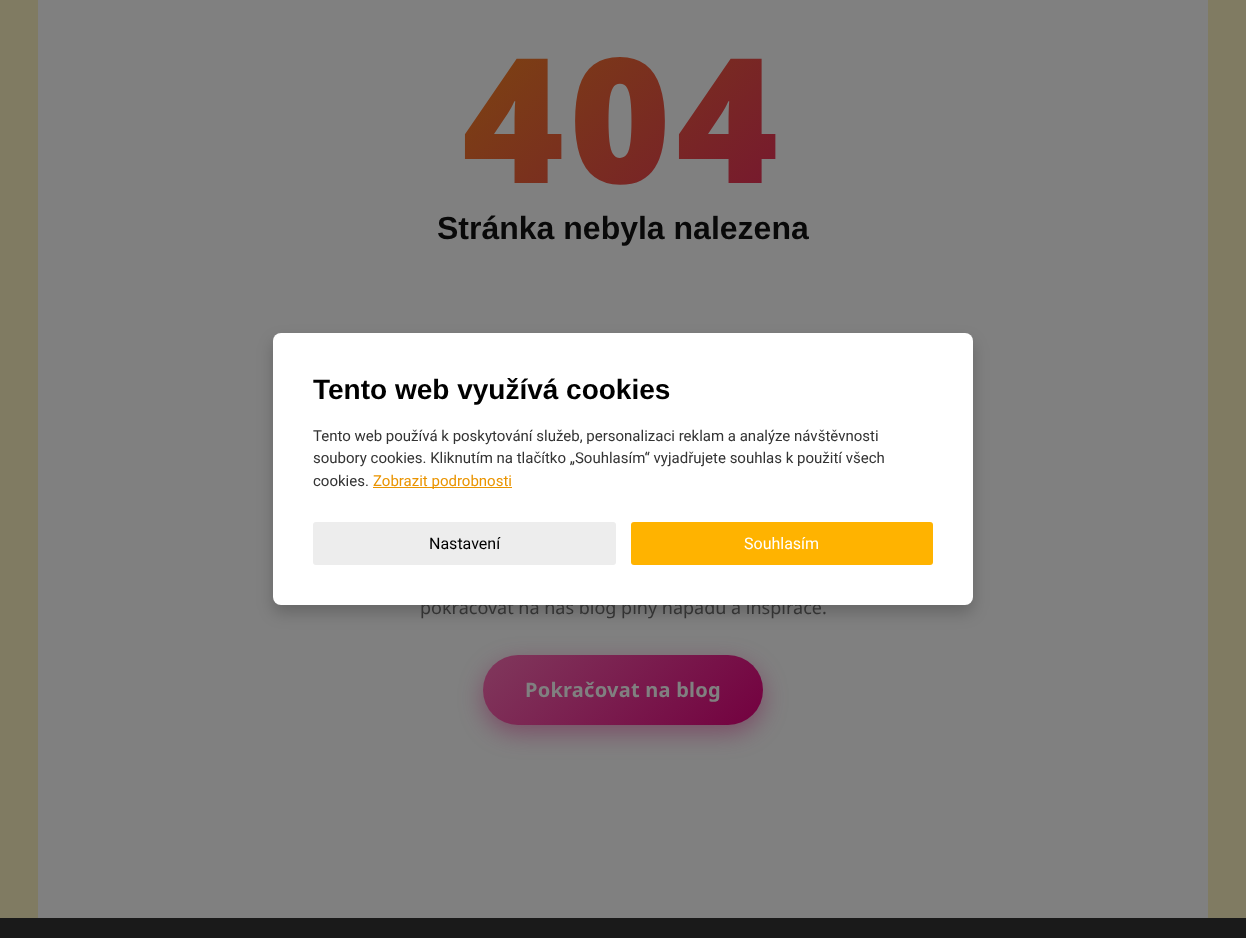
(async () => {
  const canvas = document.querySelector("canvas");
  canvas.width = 1246;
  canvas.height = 938;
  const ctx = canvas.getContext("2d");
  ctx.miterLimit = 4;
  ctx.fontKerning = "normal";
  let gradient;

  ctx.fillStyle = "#807b62";
  ctx.fillRect(0, 0, 1246, 938);
  ctx.fillStyle = "#808080";
  ctx.fillRect(38, 0, 1170, 918);
  ctx.fillStyle = "rgba(115, 0, 63, 0.4)";
  ctx.filter = "blur(12.5px)";
  ctx.beginPath();
  ctx.roundRect(483, 663, 280, 70, 35);
  ctx.fill();
  ctx.filter = "none";
  gradient = ctx.createLinearGradient(536, 603, 711, 778);
  gradient.addColorStop(0, "#80385c");
  gradient.addColorStop(1, "#73003f");
  ctx.fillStyle = gradient;
  ctx.beginPath();
  ctx.roundRect(483, 655, 280, 70, 35);
  ctx.fill();
  ctx.fillStyle = "#1a1a1a";
  ctx.fillRect(0, 918, 1246, 20);
  ctx.fillStyle = "rgba(0, 0, 0, 0.2)";
  ctx.filter = "blur(8px)";
  ctx.beginPath();
  ctx.roundRect(273, 341, 700, 272, 8);
  ctx.fill();
  ctx.filter = "none";
  ctx.letterSpacing = "5px";
  ctx.font = "900 174px Noto Sans";
  gradient = ctx.createLinearGradient(379, -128, 867, 359);
  gradient.addColorStop(0, "#805c00");
  gradient.addColorStop(1, "#73003f");
  ctx.fillStyle = gradient;
  ctx.fillText("404", 462, 183);
  ctx.letterSpacing = "0px";
  ctx.font = "bold 32px Liberation Sans";
  ctx.fillStyle = "#090909";
  ctx.fillText("Stránka nebyla nalezena", 437, 239);
  ctx.font = "18px Noto Sans";
  ctx.fillStyle = "#333333";
  ctx.fillText("pokračovat na náš blog plný nápadů a inspirace.", 420, 614);
  ctx.letterSpacing = "0.25px";
  ctx.font = "bold 20px Noto Sans";
  ctx.fillStyle = "#808080";
  ctx.fillText("Pokračovat na blog", 525, 697);
  ctx.fillStyle = "#ffffff";
  ctx.beginPath();
  ctx.roundRect(273, 333, 700, 272, 8);
  ctx.fill();
  ctx.letterSpacing = "0px";
  ctx.font = "bold 28px Liberation Sans";
  ctx.fillStyle = "#000000";
  ctx.fillText("Tento web využívá cookies", 313, 399);
  ctx.font = "15px Roboto";
  ctx.fillStyle = "#333333";
  for (const [text, x, y] of [
    ["Tento web používá k poskytování služeb, personalizaci reklam a analýze návštěvnosti", 313, 441],
    ["soubory cookies. Kliknutím na tlačítko „Souhlasím“ vyjadřujete souhlas k použití všech", 313, 463],
    ["cookies.", 313, 486],
  ]) {
    ctx.fillText(text, x, y);
  }
  ctx.fillStyle = "#ea9400";
  ctx.fillRect(373, 487, 139, 1);
  ctx.fillText("Zobrazit podrobnosti", 373, 486);
  ctx.fillStyle = "#ededed";
  ctx.beginPath();
  ctx.roundRect(313, 522, 303, 43, 3);
  ctx.fill();
  ctx.font = "16px Roboto";
  ctx.fillStyle = "#000000";
  ctx.fillText("Nastavení", 429, 549);
  ctx.fillStyle = "#ffb300";
  ctx.beginPath();
  ctx.roundRect(631, 522, 302, 43, 3);
  ctx.fill();
  ctx.fillStyle = "#ffffff";
  ctx.fillText("Souhlasím", 744, 549);
})();
